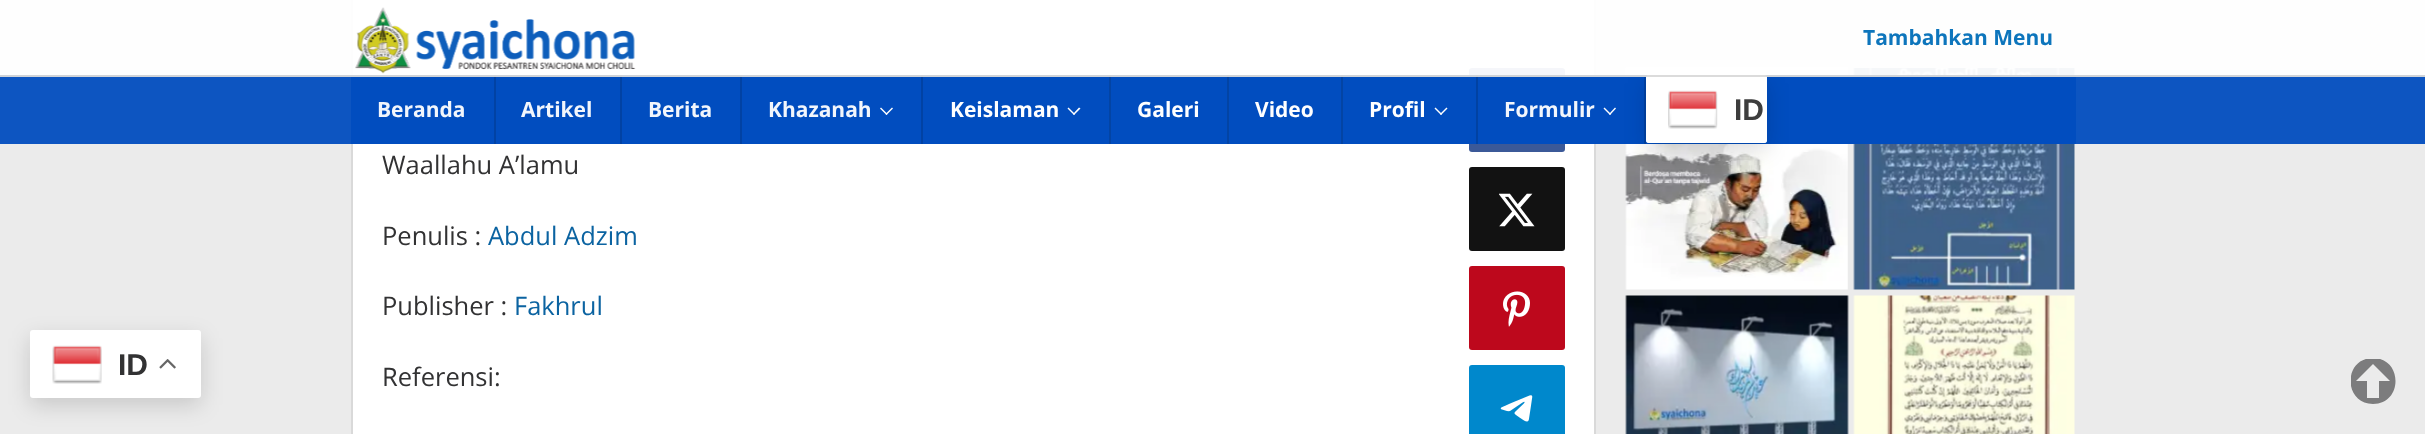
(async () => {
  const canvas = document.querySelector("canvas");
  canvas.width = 2425;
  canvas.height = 434;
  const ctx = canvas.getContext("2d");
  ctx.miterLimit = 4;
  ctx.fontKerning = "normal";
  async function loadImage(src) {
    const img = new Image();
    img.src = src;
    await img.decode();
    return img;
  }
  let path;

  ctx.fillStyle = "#ebebeb";
  ctx.fillRect(0, 0, 2425, 434);
  ctx.fillStyle = "#ffffff";
  ctx.beginPath();
  ctx.rect(352, -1, 1243, 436);
  ctx.fill();
  ctx.strokeStyle = "#d9d9d9";
  ctx.lineWidth = 2;
  ctx.stroke();
  ctx.fillStyle = "#3b5998";
  ctx.beginPath();
  ctx.roundRect(1469, 68, 96, 84, 3);
  ctx.fill();
  ctx.drawImage(await loadImage("img/5.png"), 1508, 93, 18, 36);
  ctx.drawImage(await loadImage("img/9.png"), 1625, 67, 223, 223);
  ctx.drawImage(await loadImage("img/10.png"), 1853, 68, 222, 222);
  for (const [x, y, w, h, color] of [
    [0, 75, 2425, 69, "rgba(1, 77, 191, 0.95)"],
    [351, 75, 1725, 69, "rgba(1, 77, 191, 0.95)"],
    [494, 75, 2, 69, "#0142a4"],
    [620, 75, 2, 69, "#0142a4"],
    [740, 75, 2, 69, "#0142a4"],
    [921, 75, 2, 69, "#0142a4"],
    [1109, 75, 2, 69, "#0344a4"],
    [1227, 75, 2, 69, "#0344a4"],
    [1341, 75, 2, 69, "#0344a4"],
    [1476, 75, 2, 69, "#0142a3"],
    [1644, 75, 2, 69, "#0142a4"],
  ]) {
    ctx.fillStyle = color;
    ctx.fillRect(x, y, w, h);
  }
  ctx.fillStyle = "#fefefe";
  path = new Path2D("M1615 107.5L1616 108.5L1610 115L1609 114Z");
  ctx.fill(path);
  ctx.save();
  path = new Path2D("M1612 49H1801V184H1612ZM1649 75H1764C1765.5 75 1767 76.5 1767 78V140C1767 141.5 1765.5 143 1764 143H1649C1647.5 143 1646 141.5 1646 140V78C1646 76.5 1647.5 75 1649 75Z");
  ctx.clip(path, "evenodd");
  ctx.fillStyle = "rgba(0, 0, 0, 0.14)";
  ctx.filter = "blur(11px)";
  ctx.beginPath();
  ctx.roundRect(1646, 83, 121, 67, 3);
  ctx.fill();
  ctx.filter = "none";
  ctx.restore();
  ctx.fillStyle = "rgba(255, 255, 255, 0.95)";
  ctx.beginPath();
  ctx.roundRect(1646, 75, 121, 68, 3);
  ctx.fill();
  ctx.beginPath();
  ctx.roundRect(1646, 75, 121, 68, 3);
  ctx.fill();
  ctx.fillRect(0, 0, 2425, 77);
  ctx.fillStyle = "rgba(0, 0, 0, 0.14)";
  ctx.fillRect(0, 75, 2425, 2);
  ctx.drawImage(await loadImage("img/1.png"), 355, 7, 281, 67);
  ctx.fillStyle = "#ffffff";
  path = new Path2D("M892 107.5L893 108.5L886.5 115L885.5 114Z");
  ctx.fill(path);
  path = new Path2D("M881 107.5L887.5 114L886.5 115L880 108.5Z");
  ctx.fill(path);
  path = new Path2D("M1079 107.5L1080.5 108.5L1074 115L1073 114Z");
  ctx.fill(path);
  path = new Path2D("M1068.5 107.5L1075 114L1074 115L1067.5 108.5Z");
  ctx.fill(path);
  path = new Path2D("M1446.5 107.5L1447.5 108.5L1441 115L1440 114Z");
  ctx.fill(path);
  path = new Path2D("M1435.5 107.5L1442 114L1441 115L1434.5 108.5Z");
  ctx.fill(path);
  ctx.fillStyle = "#fefefe";
  path = new Path2D("M1604.5 107.5L1611 114L1610 115L1603.5 108.5Z");
  ctx.fill(path);
  ctx.drawImage(await loadImage("img/2.png"), 1668, 90, 50, 39);
  ctx.fillStyle = "rgba(0, 0, 0, 0.15)";
  ctx.filter = "blur(11px)";
  ctx.beginPath();
  ctx.roundRect(30, 338, 171, 67, 3);
  ctx.fill();
  ctx.filter = "none";
  ctx.fillStyle = "#ffffff";
  ctx.beginPath();
  ctx.roundRect(30, 330, 171, 68, 3);
  ctx.fill();
  ctx.drawImage(await loadImage("img/3.png"), 52, 345, 50, 39);
  ctx.drawImage(await loadImage("img/4.png"), 159, 359, 17, 10);
  ctx.fillStyle = "#121212";
  ctx.beginPath();
  ctx.roundRect(1469, 167, 96, 84, 3);
  ctx.fill();
  ctx.drawImage(await loadImage("img/6.png"), 1499, 193, 36, 34);
  ctx.fillStyle = "#bd081c";
  ctx.beginPath();
  ctx.roundRect(1469, 266, 96, 84, 3);
  ctx.fill();
  ctx.drawImage(await loadImage("img/7.png"), 1503, 291, 27, 36);
  ctx.fillStyle = "#0088cc";
  ctx.beginPath();
  ctx.roundRect(1469, 365, 96, 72, 3);
  ctx.fill();
  ctx.drawImage(await loadImage("img/8.png"), 1500, 395, 33, 27);
  ctx.drawImage(await loadImage("img/11.png"), 1625, 295, 224, 139);
  ctx.drawImage(await loadImage("img/12.png"), 1853, 295, 222, 139);
  ctx.save();
  ctx.beginPath();
  ctx.rect(2351, 359, 45, 45);
  ctx.clip();
  ctx.fillStyle = "#7c7c7d";
  path = new Path2D("M2373 358C2343 358 2343 404 2373 404C2403 404 2403 358 2373 358ZM2373 364L2390 381H2379V398H2367V381H2356Z");
  ctx.fill(path);
  ctx.restore();
  ctx.font = "bold 21px Open Sans";
  ctx.fillStyle = "#0d75bc";
  ctx.fillText("Tambahkan Menu", 1863, 45);
  ctx.fillStyle = "#f2f6fc";
  for (const [text, x, y] of [
    ["Beranda", 377, 117],
    ["Artikel", 521, 117],
    ["Berita", 648, 117],
    ["Khazanah", 768, 117],
  ]) {
    ctx.fillText(text, x, y);
  }
  ctx.fillStyle = "#ffffff";
  for (const [text, x, y] of [
    ["Keislaman", 950, 117],
    ["Galeri", 1137, 117],
    ["Video", 1255, 117],
    ["Profil", 1369, 117],
  ]) {
    ctx.fillText(text, x, y);
  }
  ctx.fillStyle = "#f2f6fc";
  ctx.fillText("Formulir", 1504, 117);
  ctx.font = "bold 30px Liberation Sans";
  ctx.fillStyle = "#3d3d3d";
  ctx.fillText("ID", 1734, 120);
  ctx.fillStyle = "#323233";
  ctx.fillText("ID", 118, 375);
  ctx.font = "25.5px Open Sans";
  ctx.fillText("Waallahu A’lamu", 382, 174);
  ctx.fillText("Penulis :", 382, 245);
  ctx.fillStyle = "#0b63a1";
  ctx.fillText("Abdul Adzim", 488, 245);
  ctx.fillStyle = "#323233";
  ctx.fillText("Publisher :", 382, 315);
  ctx.fillStyle = "#0b63a1";
  ctx.fillText("Fakhrul", 514, 315);
  ctx.fillStyle = "#323233";
  ctx.fillText("Referensi:", 382, 386);
})();
